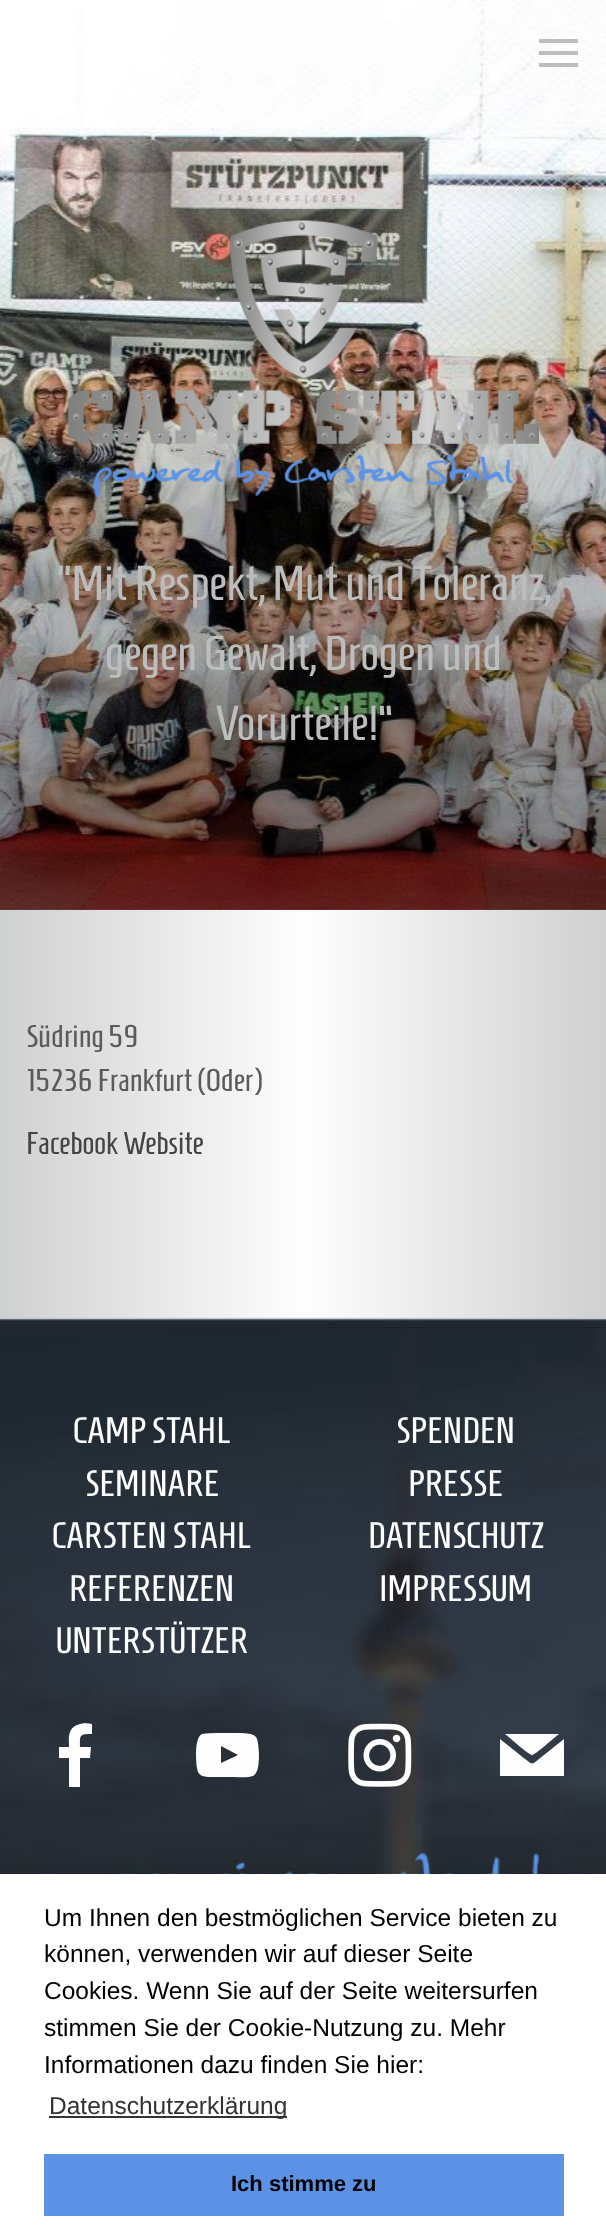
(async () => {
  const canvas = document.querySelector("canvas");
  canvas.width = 606;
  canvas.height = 2239;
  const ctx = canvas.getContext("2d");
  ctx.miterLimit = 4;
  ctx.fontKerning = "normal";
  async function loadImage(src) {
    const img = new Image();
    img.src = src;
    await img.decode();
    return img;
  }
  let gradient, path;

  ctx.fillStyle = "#ffffff";
  ctx.fillRect(0, 0, 606, 2239);
  ctx.drawImage(await loadImage("img/1.png"), 0, 0, 606, 910);
  for (const [x, y, w, h, color] of [
    [539, 39, 39, 4, "#bcbdbd"],
    [539, 51, 39, 4, "#bcbdbd"],
    [539, 63, 39, 4, "#bcbdbd"],
  ]) {
    ctx.fillStyle = color;
    ctx.fillRect(x, y, w, h);
  }
  gradient = ctx.createLinearGradient(304, 0, 304, 910);
  gradient.addColorStop(0, "rgba(0, 0, 0, 0)");
  gradient.addColorStop(0.4, "rgba(0, 0, 0, 0)");
  gradient.addColorStop(1, "rgba(0, 0, 0, 0.5)");
  ctx.fillStyle = gradient;
  ctx.fillRect(0, 388, 606, 522);
  ctx.drawImage(await loadImage("img/2.png"), 68, 220, 471, 277);
  gradient = ctx.createLinearGradient(0, 1114, 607, 1114);
  gradient.addColorStop(0, "#cfd0d0");
  gradient.addColorStop(0.5, "#fefefe");
  gradient.addColorStop(1, "#cfd0d0");
  ctx.fillStyle = gradient;
  ctx.fillRect(0, 910, 606, 408);
  ctx.drawImage(await loadImage("img/3.png"), 0, 1317, 606, 557);
  ctx.fillStyle = "#fefefe";
  path = new Path2D("M80 1787H69V1758H59V1747H69C69 1742 68 1737 70 1732C73 1724 84 1722 92 1724V1734C79 1734 80 1735 80 1747H91L90 1758H80Z");
  ctx.fill(path);
  path = new Path2D("M258 1743C259 1750 261 1772 253 1776C248 1778 238 1777 232 1777H215C207 1777 198 1778 197 1768C196 1761 194 1738 202 1734C206 1733 218 1733 223 1733H242C250 1734 257 1733 258 1743ZM236 1756L238 1755L221 1746V1763Z");
  ctx.fill(path);
  ctx.drawImage(await loadImage("img/4.png"), 348, 1723, 64, 64);
  path = new Path2D("M534 1763L564 1739V1776H500V1739L525 1759C527 1760 531 1765 534 1763ZM532 1755C529 1755 509 1737 505 1734H559C555 1737 535 1755 532 1755Z");
  ctx.fill(path);
  ctx.drawImage(await loadImage("img/5.png"), 121, 1853, 418, 21);
  ctx.fillStyle = "#333333";
  ctx.fillRect(49, 2116, 238, 2);
  ctx.fillStyle = "#5b92e5";
  ctx.fillRect(44, 2154, 520, 62);
  ctx.font = "49px Homenaje";
  ctx.fillStyle = "#bcbdbd";
  for (const [text, x, y] of [
    ["„Mit Respekt, Mut und Toleranz,", 56, 600],
    ["gegen Gewalt, Drogen und", 105, 670],
    ["Vorurteile!“", 215, 740],
  ]) {
    ctx.fillText(text, x, y);
  }
  ctx.font = "31.5px Homenaje";
  ctx.fillStyle = "#5b5b5b";
  ctx.fillText("Südring 59", 26, 1047);
  ctx.fillText("15236 Frankfurt (Oder)", 26, 1091);
  ctx.fillStyle = "#444444";
  ctx.fillText("Facebook Website", 26, 1154);
  ctx.font = "36.75px Homenaje";
  ctx.fillStyle = "#fefefe";
  for (const [text, x, y] of [
    ["CAMP STAHL", 73, 1443],
    ["SEMINARE", 85, 1496],
    ["CARSTEN STAHL", 52, 1548],
    ["REFERENZEN", 69, 1601],
    ["UNTERSTÜTZER", 56, 1653],
    ["SPENDEN", 396, 1443],
    ["PRESSE", 408, 1496],
    ["DATENSCHUTZ", 368, 1548],
    ["IMPRESSUM", 379, 1601],
  ]) {
    ctx.fillText(text, x, y);
  }
  ctx.font = "24.5px Liberation Sans";
  ctx.fillStyle = "#000000";
  for (const [text, x, y] of [
    ["Um Ihnen den bestmöglichen Service bieten zu", 44, 1926],
    ["können, verwenden wir auf dieser Seite", 44, 1962],
    ["Cookies. Wenn Sie auf der Seite weitersurfen", 44, 1999],
    ["stimmen Sie der Cookie-Nutzung zu. Mehr", 44, 2036],
    ["Informationen dazu finden Sie hier:", 44, 2073],
  ]) {
    ctx.fillText(text, x, y);
  }
  ctx.fillStyle = "#333333";
  ctx.fillText("Datenschutzerklärung", 49, 2114);
  ctx.font = "bold 22px Liberation Sans";
  ctx.fillStyle = "#000000";
  ctx.fillText("Ich stimme zu", 231, 2191);
})();
